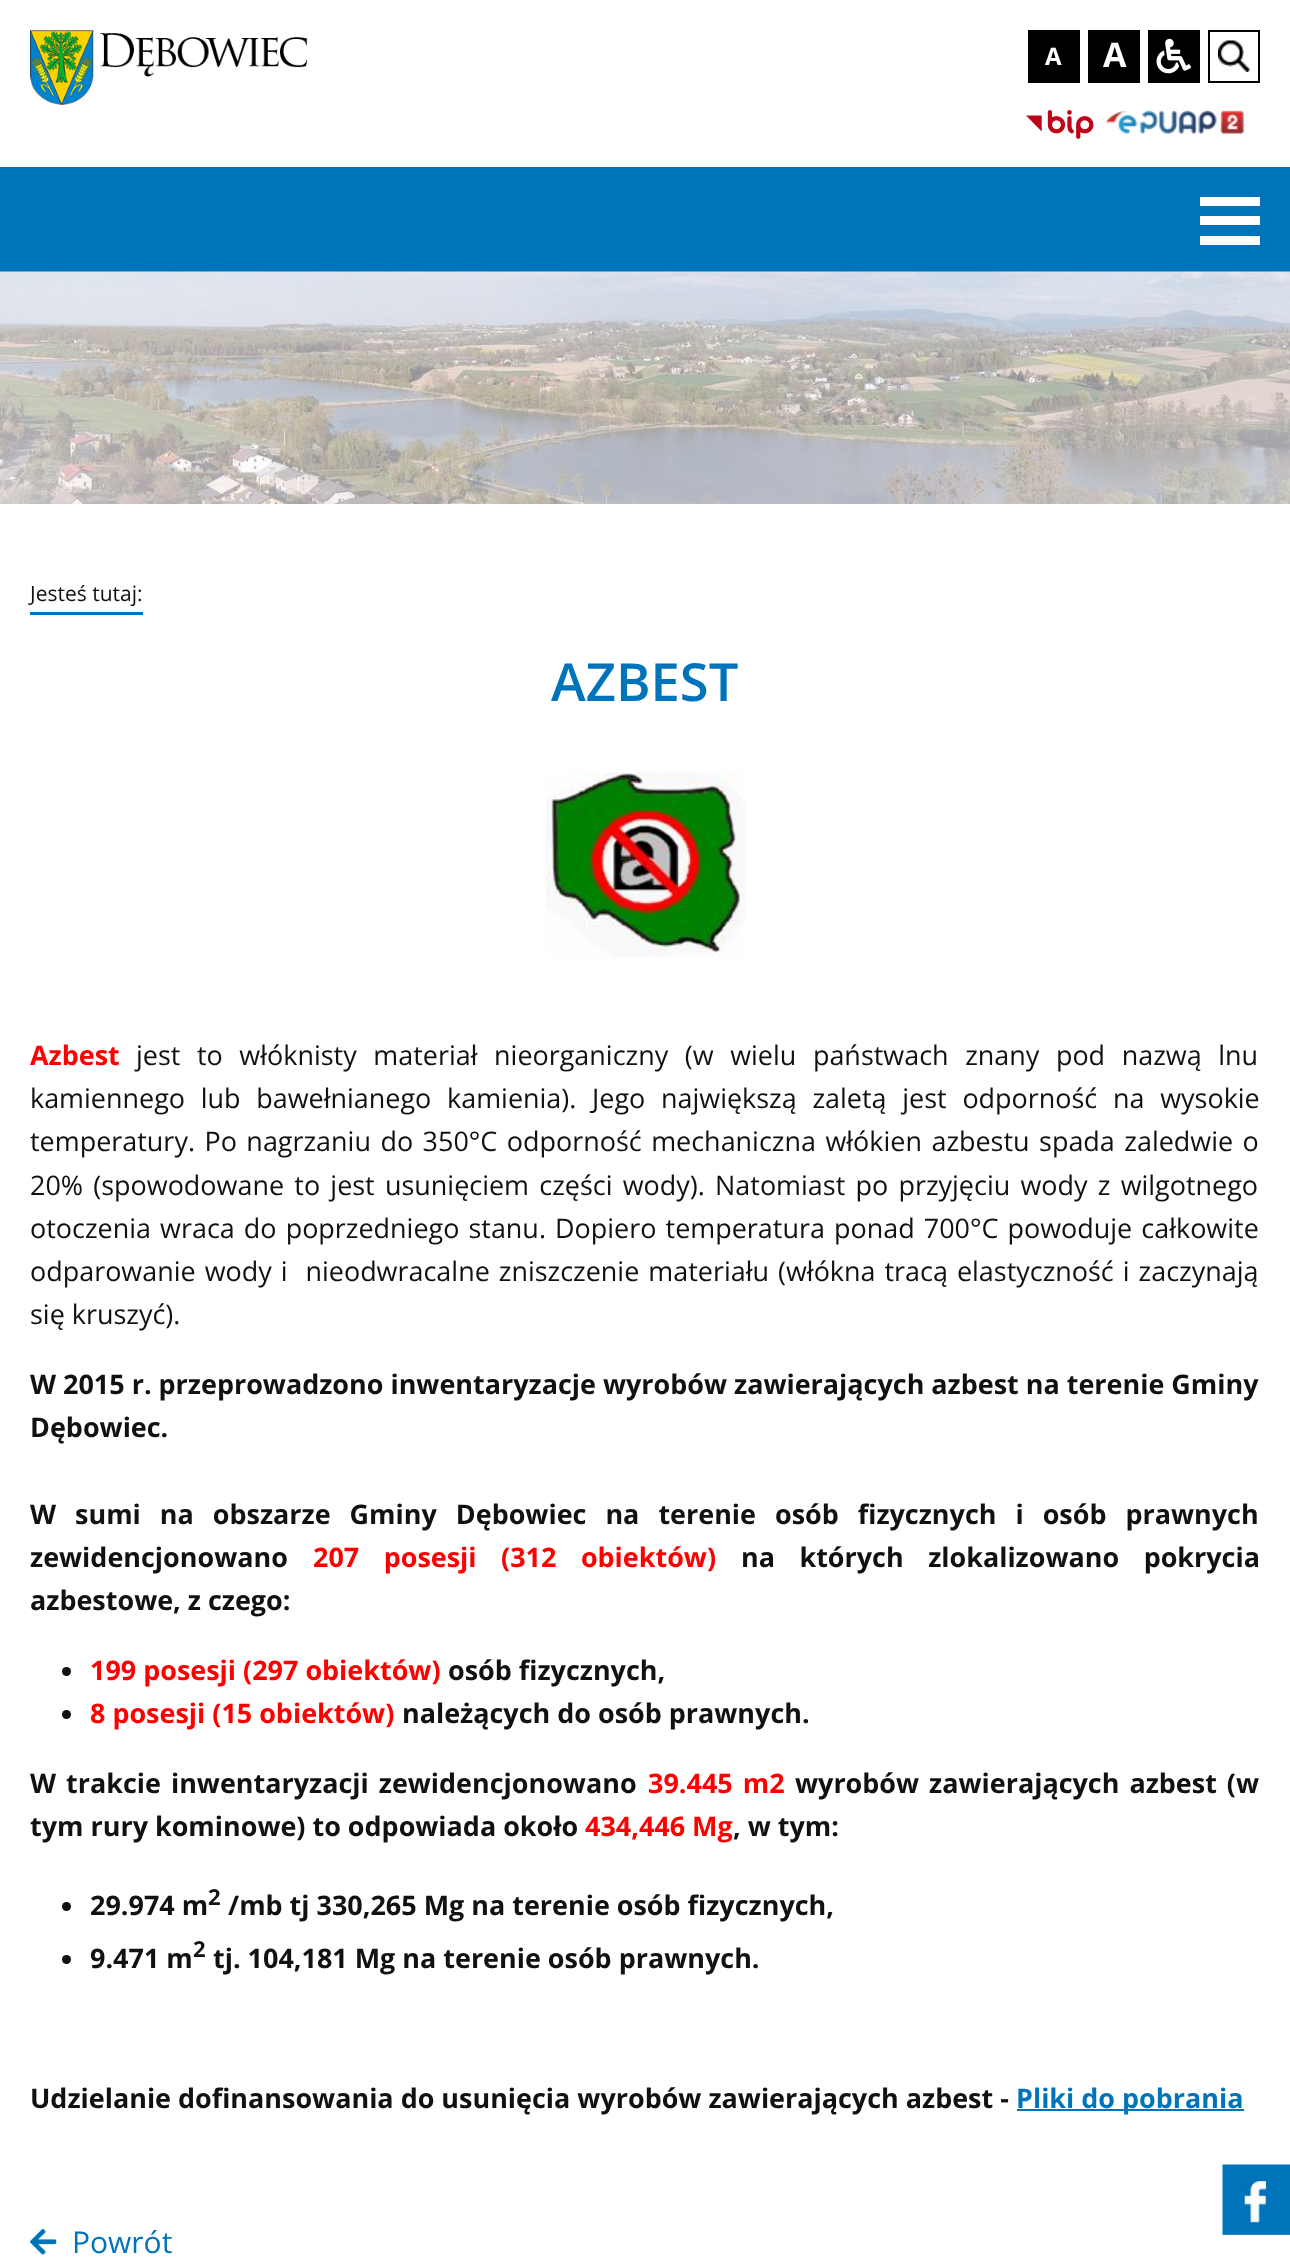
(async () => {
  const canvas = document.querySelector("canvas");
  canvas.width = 1290;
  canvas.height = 2264;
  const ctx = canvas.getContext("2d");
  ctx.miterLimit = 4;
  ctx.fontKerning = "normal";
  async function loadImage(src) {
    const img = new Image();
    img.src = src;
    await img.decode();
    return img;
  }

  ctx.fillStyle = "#ffffff";
  ctx.fillRect(0, 0, 1290, 2264);
  ctx.drawImage(await loadImage("img/1.png"), 30, 30, 278, 75);
  for (const [x, y, w, h, color] of [
    [1028, 30, 52, 53, "#000000"],
    [1088, 30, 52, 53, "#000000"],
    [1148, 30, 52, 53, "#000000"],
  ]) {
    ctx.fillStyle = color;
    ctx.fillRect(x, y, w, h);
  }
  ctx.drawImage(await loadImage("img/2.png"), 1156, 38, 35, 36);
  ctx.strokeStyle = "#000000";
  ctx.lineWidth = 2;
  ctx.strokeRect(1209, 31, 50, 51);
  ctx.drawImage(await loadImage("img/3.png"), 1218, 40, 32, 32);
  ctx.drawImage(await loadImage("img/4.png"), 1026, 110, 68, 29);
  ctx.drawImage(await loadImage("img/5.png"), 1105, 110, 139, 24);
  for (const [x, y, w, h, color] of [
    [0, 167, 1290, 105, "#0074ba"],
    [1200, 197, 60, 9, "#ffffff"],
    [1200, 216, 60, 9, "#ffffff"],
    [1200, 236, 60, 9, "#ffffff"],
  ]) {
    ctx.fillStyle = color;
    ctx.fillRect(x, y, w, h);
  }
  ctx.drawImage(await loadImage("img/6.png"), 0, 271, 1290, 233);
  ctx.fillStyle = "#0074ba";
  ctx.fillRect(30, 612, 113, 3);
  ctx.drawImage(await loadImage("img/7.png"), 546, 772, 200, 185);
  ctx.fillStyle = "#111111";
  ctx.beginPath();
  ctx.arc(66.5, 1671.5, 4.5, 0, Math.PI * 2);
  ctx.fill();
  ctx.beginPath();
  ctx.arc(66.5, 1714.5, 4.5, 0, Math.PI * 2);
  ctx.fill();
  ctx.beginPath();
  ctx.arc(66.5, 1906.5, 4.5, 0, Math.PI * 2);
  ctx.fill();
  ctx.beginPath();
  ctx.arc(66.5, 1959.5, 4.5, 0, Math.PI * 2);
  ctx.fill();
  ctx.fillStyle = "#0074ba";
  ctx.fillRect(1017, 2109, 227, 2);
  ctx.drawImage(await loadImage("img/8.png"), 30, 2229, 27, 26);
  ctx.drawImage(await loadImage("img/9.png"), 1222, 2164, 68, 71);
  ctx.font = "bold 24px Open Sans";
  ctx.fillStyle = "#ffffff";
  ctx.fillText("A", 1045, 65);
  ctx.font = "bold 34px Open Sans";
  ctx.fillText("A", 1103, 67);
  ctx.font = "21px Open Sans";
  ctx.fillStyle = "#111111";
  ctx.fillText("Jesteś tutaj:", 30, 601);
  ctx.font = "600 52.5px Open Sans";
  ctx.fillStyle = "#0074ba";
  ctx.fillText("AZBEST", 551, 701);
  ctx.font = "bold 26.95px Open Sans";
  ctx.fillStyle = "#ff0000";
  ctx.fillText("Azbest", 30, 1065);
  ctx.wordSpacing = "9.6px";
  ctx.font = "26.95px Open Sans";
  ctx.fillStyle = "#111111";
  ctx.fillText("jest to włóknisty materiał nieorganiczny (w wielu państwach znany pod nazwą lnu", 136, 1065);
  ctx.wordSpacing = "8.75px";
  ctx.fillText("kamiennego lub bawełnianego kamienia). Jego największą zaletą jest odporność na wysokie", 30, 1108);
  ctx.wordSpacing = "2.5px";
  ctx.fillText("temperatury. Po nagrzaniu do 350°C odporność mechaniczna włókien azbestu spada zaledwie o", 30, 1151);
  ctx.wordSpacing = "3.25px";
  ctx.fillText("20% (spowodowane to jest usunięciem części wody). Natomiast po przyjęciu wody z wilgotnego", 30, 1195);
  ctx.wordSpacing = "2.1px";
  ctx.fillText("otoczenia wraca do poprzedniego stanu. Dopiero temperatura ponad 700°C powoduje całkowite", 30, 1238);
  ctx.wordSpacing = "2px";
  ctx.fillText("odparowanie wody i  nieodwracalne zniszczenie materiału (włókna tracą elastyczność i zaczynają", 30, 1281);
  ctx.wordSpacing = "0px";
  ctx.fillText("się kruszyć).", 30, 1324);
  ctx.font = "bold 26.95px Open Sans";
  ctx.fillText("W 2015 r. przeprowadzono inwentaryzacje wyrobów zawierających azbest na terenie Gminy", 30, 1394);
  ctx.fillText("Dębowiec.", 30, 1437);
  ctx.wordSpacing = "12px";
  ctx.fillText("W sumi na obszarze Gminy Dębowiec na terenie osób fizycznych i osób prawnych", 30, 1524);
  ctx.wordSpacing = "0px";
  ctx.fillText("zewidencjonowano", 30, 1567);
  ctx.wordSpacing = "17.5px";
  ctx.fillStyle = "#ff0000";
  ctx.fillText("207 posesji (312 obiektów)", 313, 1567);
  ctx.fillStyle = "#111111";
  ctx.fillText("na których zlokalizowano pokrycia", 741, 1567);
  ctx.wordSpacing = "0px";
  ctx.fillText("azbestowe, z czego:", 30, 1610);
  ctx.fillStyle = "#ff0000";
  ctx.fillText("199 posesji (297 obiektów)", 90, 1680);
  ctx.fillStyle = "#111111";
  ctx.fillText("osób fizycznych,", 448, 1680);
  ctx.fillStyle = "#ff0000";
  ctx.fillText("8 posesji (15 obiektów)", 90, 1723);
  ctx.fillStyle = "#111111";
  ctx.fillText("należących do osób prawnych.", 402, 1723);
  ctx.wordSpacing = "3px";
  ctx.fillText("W trakcie inwentaryzacji zewidencjonowano", 30, 1793);
  ctx.fillStyle = "#ff0000";
  ctx.fillText("39.445 m2", 648, 1793);
  ctx.fillStyle = "#111111";
  ctx.fillText("wyrobów zawierających azbest (w", 795, 1793);
  ctx.wordSpacing = "0px";
  ctx.fillText("tym rury kominowe) to odpowiada około", 30, 1836);
  ctx.fillStyle = "#ff0000";
  ctx.fillText("434,446 Mg", 585, 1836);
  ctx.fillStyle = "#111111";
  ctx.fillText(", w tym:", 733, 1836);
  ctx.fillText("29.974 m", 90, 1915);
  ctx.font = "bold 22px Open Sans";
  ctx.fillText("2", 208, 1905);
  ctx.font = "bold 26.95px Open Sans";
  ctx.fillText("/mb tj 330,265 Mg na terenie osób fizycznych,", 228, 1915);
  ctx.fillText("9.471 m", 90, 1968);
  ctx.font = "bold 22px Open Sans";
  ctx.fillText("2", 193, 1957);
  ctx.font = "bold 26.95px Open Sans";
  ctx.fillText("tj. 104,181 Mg na terenie osób prawnych.", 213, 1968);
  ctx.fillText("Udzielanie dofinansowania do usunięcia wyrobów zawierających azbest -", 30, 2108);
  ctx.fillStyle = "#0074ba";
  ctx.fillText("Pliki do pobrania", 1016, 2108);
  ctx.font = "30px Open Sans";
  ctx.fillText("Powrót", 72, 2253);
})();
